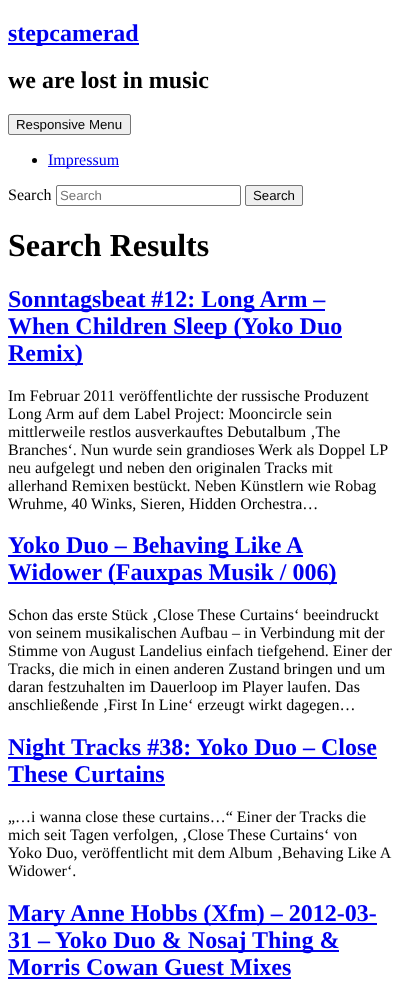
(async () => {
  const canvas = document.querySelector("canvas");
  canvas.width = 400;
  canvas.height = 992;
  const ctx = canvas.getContext("2d");
  ctx.miterLimit = 4;
  ctx.fontKerning = "normal";

  ctx.fillStyle = "#ffffff";
  ctx.fillRect(0, 0, 400, 992);
  ctx.fillStyle = "#0000ee";
  ctx.fillRect(8, 43, 131, 2);
  ctx.fillStyle = "#efefef";
  ctx.beginPath();
  ctx.roundRect(8.5, 114.5, 122, 20, 1.5);
  ctx.fill();
  ctx.strokeStyle = "#767676";
  ctx.stroke();
  ctx.fillStyle = "#000000";
  ctx.beginPath();
  ctx.arc(34.5, 160.5, 2.5, 0, Math.PI * 2);
  ctx.fill();
  ctx.fillStyle = "#0000ee";
  ctx.fillRect(48, 166, 71, 1);
  ctx.beginPath();
  ctx.roundRect(56.5, 185.5, 184, 20, 1.5);
  ctx.stroke();
  ctx.fillStyle = "#efefef";
  ctx.beginPath();
  ctx.roundRect(245.5, 185.5, 57, 20, 1.5);
  ctx.fill();
  ctx.stroke();
  for (const [x, y, w, h, color] of [
    [8, 309, 317, 2, "#0000ee"],
    [8, 336, 334, 2, "#0000ee"],
    [8, 363, 75, 2, "#0000ee"],
    [8, 555, 295, 2, "#0000ee"],
    [8, 582, 329, 2, "#0000ee"],
    [8, 757, 369, 2, "#0000ee"],
    [8, 784, 157, 2, "#0000ee"],
    [8, 923, 369, 2, "#0000ee"],
    [8, 950, 331, 2, "#0000ee"],
    [8, 977, 283, 2, "#0000ee"],
  ]) {
    ctx.fillStyle = color;
    ctx.fillRect(x, y, w, h);
  }
  ctx.font = "bold 24px Liberation Serif";
  ctx.fillText("stepcamerad", 8, 41);
  ctx.fillStyle = "#000000";
  ctx.fillText("we are lost in music", 8, 88);
  ctx.font = "13.25px Liberation Sans";
  ctx.fillText("Responsive Menu", 16, 129);
  ctx.font = "16px Liberation Serif";
  ctx.fillStyle = "#0000ee";
  ctx.fillText("Impressum", 48, 165);
  ctx.fillStyle = "#000000";
  ctx.fillText("Search", 8, 200);
  ctx.font = "13.25px Liberation Sans";
  ctx.fillStyle = "#757575";
  ctx.fillText("Search", 60, 200);
  ctx.fillStyle = "#000000";
  ctx.fillText("Search", 253, 200);
  ctx.font = "bold 32px Liberation Serif";
  ctx.fillText("Search Results", 8, 256);
  ctx.font = "bold 24px Liberation Serif";
  ctx.fillStyle = "#0000ee";
  for (const [text, x, y] of [
    ["Sonntagsbeat #12: Long Arm –", 8, 307],
    ["When Children Sleep (Yoko Duo", 8, 334],
    ["Remix)", 8, 361],
  ]) {
    ctx.fillText(text, x, y);
  }
  ctx.font = "16px Liberation Serif";
  ctx.fillStyle = "#000000";
  for (const [text, x, y] of [
    ["Im Februar 2011 veröffentlichte der russische Produzent", 8, 401],
    ["Long Arm auf dem Label Project: Mooncircle sein", 8, 419],
    ["mittlerweile restlos ausverkauftes Debutalbum ‚The", 8, 437],
    ["Branches‘. Nun wurde sein grandioses Werk als Doppel LP", 8, 455],
    ["neu aufgelegt und neben den originalen Tracks mit", 8, 473],
    ["allerhand Remixen bestückt. Neben Künstlern wie Robag", 8, 491],
    ["Wruhme, 40 Winks, Sieren, Hidden Orchestra…", 8, 509],
  ]) {
    ctx.fillText(text, x, y);
  }
  ctx.font = "bold 24px Liberation Serif";
  ctx.fillStyle = "#0000ee";
  ctx.fillText("Yoko Duo – Behaving Like A", 8, 553);
  ctx.fillText("Widower (Fauxpas Musik / 006)", 8, 580);
  ctx.font = "16px Liberation Serif";
  ctx.fillStyle = "#000000";
  for (const [text, x, y] of [
    ["Schon das erste Stück ‚Close These Curtains‘ beeindruckt", 8, 620],
    ["von seinem musikalischen Aufbau – in Verbindung mit der", 8, 638],
    ["Stimme von August Landelius einfach tiefgehend. Einer der", 8, 656],
    ["Tracks, die mich in einen anderen Zustand bringen und um", 8, 674],
    ["daran festzuhalten im Dauerloop im Player laufen. Das", 8, 692],
    ["anschließende ‚First In Line‘ erzeugt wirkt dagegen…", 8, 710],
  ]) {
    ctx.fillText(text, x, y);
  }
  ctx.font = "bold 24px Liberation Serif";
  ctx.fillStyle = "#0000ee";
  ctx.fillText("Night Tracks #38: Yoko Duo – Close", 8, 755);
  ctx.fillText("These Curtains", 8, 782);
  ctx.font = "16px Liberation Serif";
  ctx.fillStyle = "#000000";
  for (const [text, x, y] of [
    ["„…i wanna close these curtains…“ Einer der Tracks die", 8, 822],
    ["mich seit Tagen verfolgen, ‚Close These Curtains‘ von", 8, 840],
    ["Yoko Duo, veröffentlicht mit dem Album ‚Behaving Like A", 8, 858],
    ["Widower‘.", 8, 876],
  ]) {
    ctx.fillText(text, x, y);
  }
  ctx.font = "bold 24px Liberation Serif";
  ctx.fillStyle = "#0000ee";
  for (const [text, x, y] of [
    ["Mary Anne Hobbs (Xfm) – 2012-03-", 8, 921],
    ["31 – Yoko Duo & Nosaj Thing &", 8, 948],
    ["Morris Cowan Guest Mixes", 8, 975],
  ]) {
    ctx.fillText(text, x, y);
  }
})();
